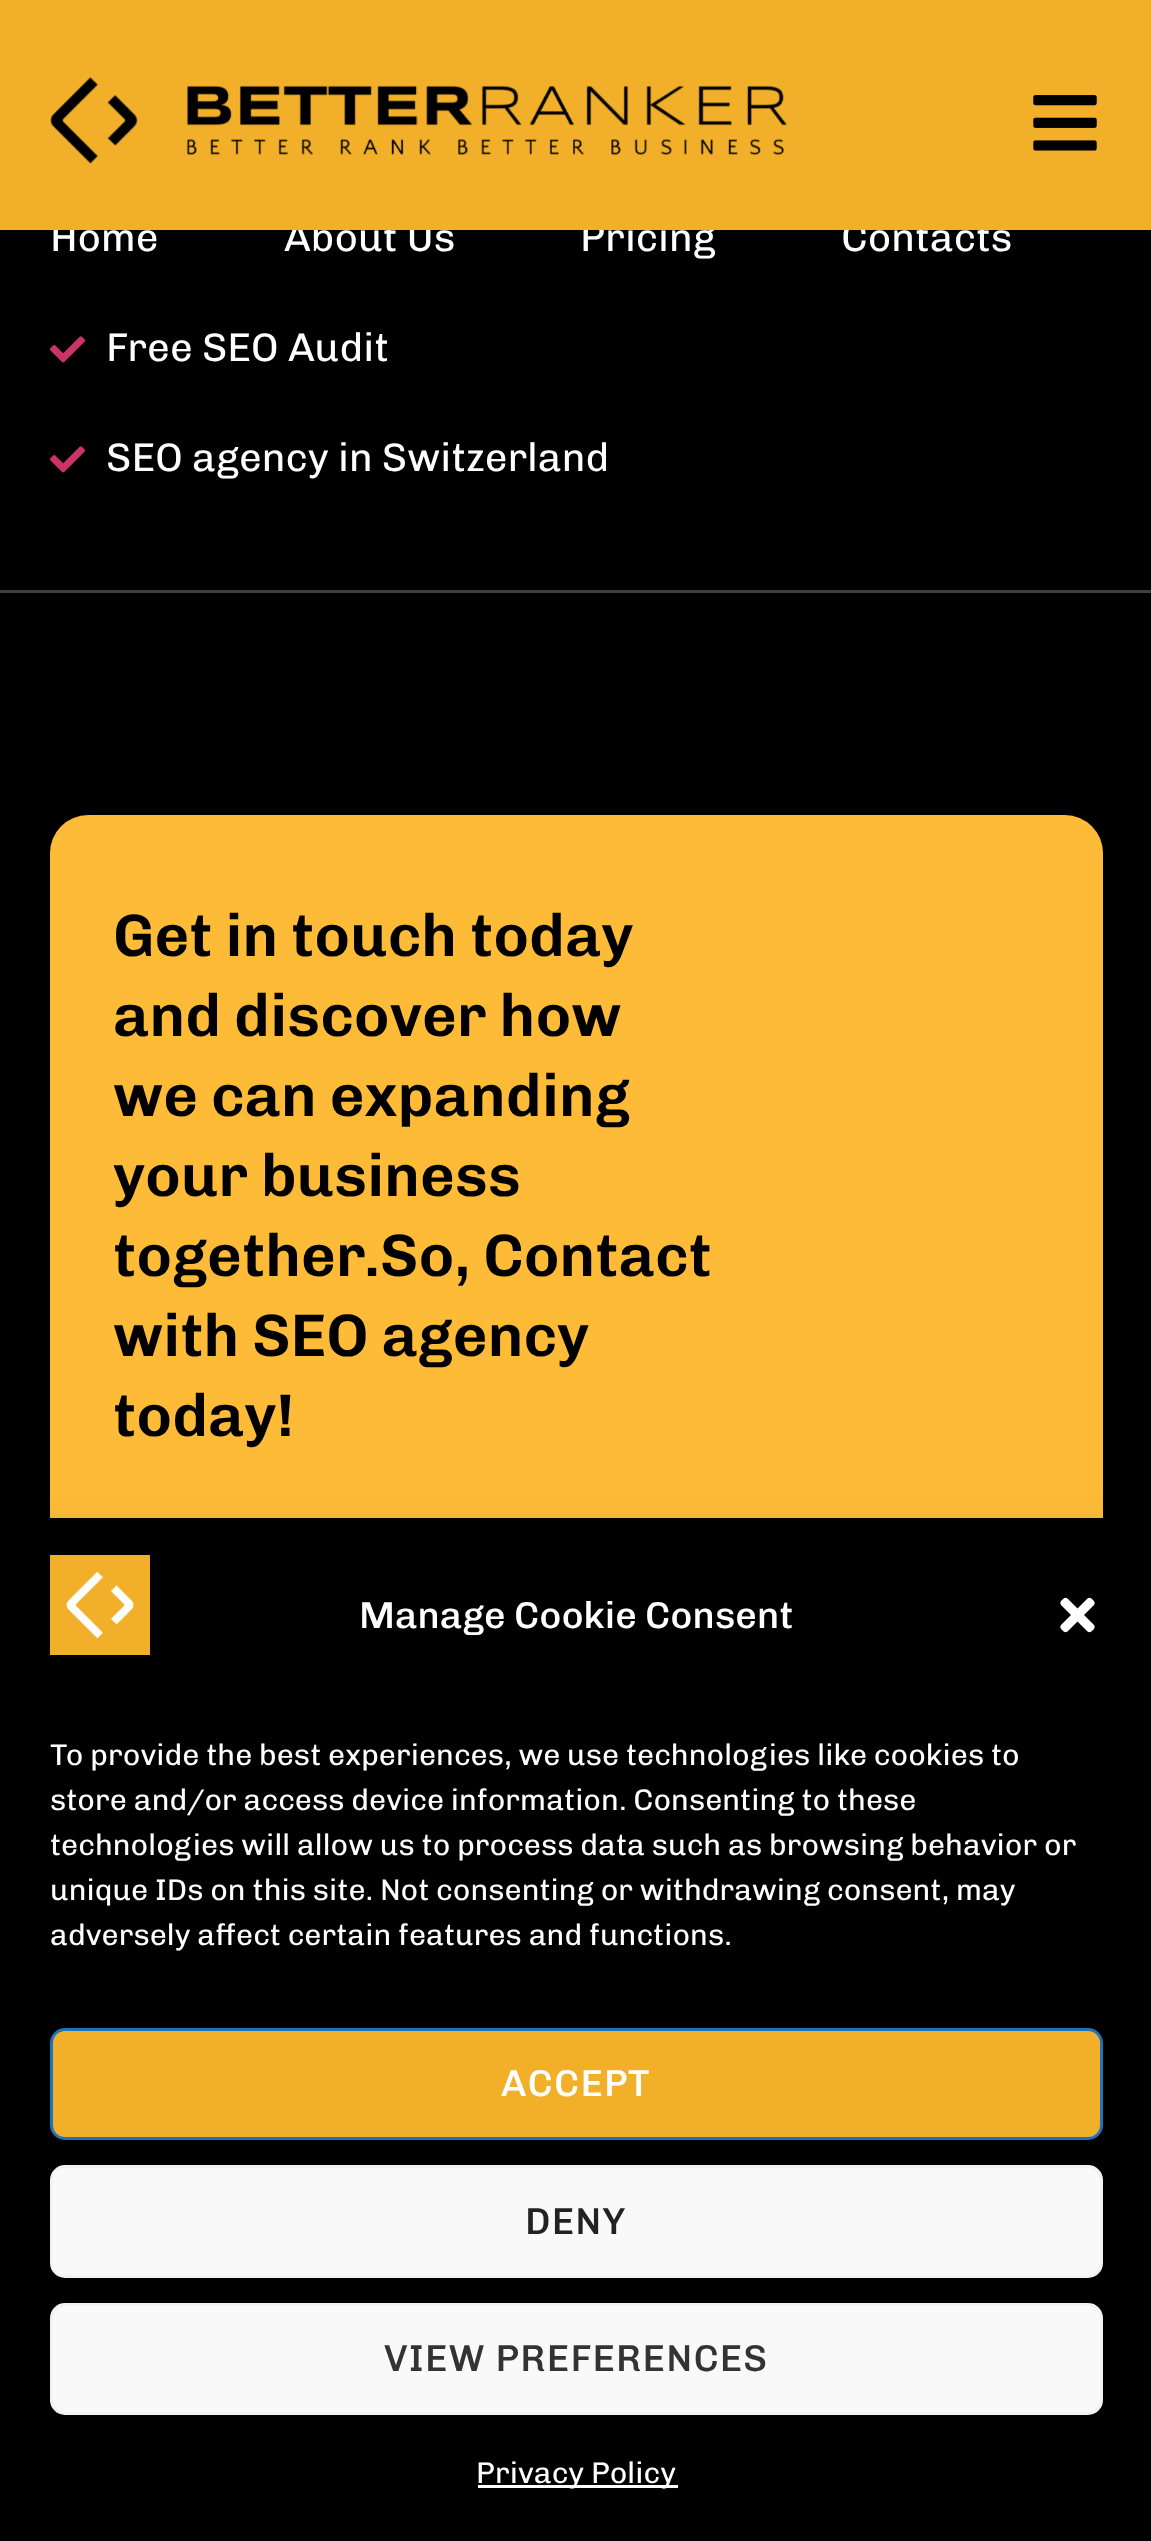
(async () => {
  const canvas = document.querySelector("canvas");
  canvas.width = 1151;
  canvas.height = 2541;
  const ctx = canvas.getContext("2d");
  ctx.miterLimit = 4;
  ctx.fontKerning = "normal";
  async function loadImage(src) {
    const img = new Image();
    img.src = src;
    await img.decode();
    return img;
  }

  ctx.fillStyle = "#000000";
  ctx.fillRect(0, 0, 1151, 2541);
  ctx.drawImage(await loadImage("img/3.png"), 50, 336, 35, 27);
  ctx.drawImage(await loadImage("img/3.png"), 50, 446, 35, 27);
  ctx.fillStyle = "#404040";
  ctx.fillRect(0, 590, 1151, 3);
  ctx.fillStyle = "#fdbb37";
  ctx.beginPath();
  ctx.roundRect(50, 815, 1053, 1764, 38);
  ctx.fill();
  ctx.fillStyle = "rgba(0, 0, 0, 0.19)";
  ctx.filter = "blur(25px)";
  ctx.beginPath();
  ctx.roundRect(0, 1543, 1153, 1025, 30);
  ctx.fill();
  ctx.filter = "none";
  ctx.fillStyle = "#000000";
  ctx.beginPath();
  ctx.roundRect(0, 1518, 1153, 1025, 30);
  ctx.fill();
  ctx.drawImage(await loadImage("img/4.png"), 50, 1555, 100, 100);
  ctx.drawImage(await loadImage("img/5.png"), 1060, 1597, 35, 36);
  ctx.fillStyle = "#f2af29";
  ctx.beginPath();
  ctx.roundRect(51.5, 2029.5, 1050, 109, 13.5);
  ctx.fill();
  ctx.strokeStyle = "#1e73be";
  ctx.lineWidth = 3;
  ctx.stroke();
  ctx.fillStyle = "#f9f9f9";
  ctx.beginPath();
  ctx.roundRect(51.5, 2166.5, 1050, 110, 13.5);
  ctx.fill();
  ctx.strokeStyle = "#f2f2f2";
  ctx.stroke();
  ctx.beginPath();
  ctx.roundRect(51.5, 2304.5, 1050, 109, 13.5);
  ctx.fill();
  ctx.stroke();
  ctx.fillStyle = "#ffffff";
  ctx.fillRect(478, 2485, 200, 3);
  ctx.font = "40px Chivo";
  for (const [text, x, y] of [
    ["Home", 50, 251],
    ["About Us", 284, 251],
    ["Pricing", 580, 251],
    ["Contacts", 841, 251],
  ]) {
    ctx.fillText(text, x, y);
  }
  ctx.fillStyle = "#f2af29";
  ctx.fillRect(0, 0, 1151, 230);
  ctx.drawImage(await loadImage("img/2.png"), 1033, 95, 64, 56);
  ctx.drawImage(await loadImage("img/1.png"), 50, 77, 737, 87);
  ctx.fillStyle = "#ffffff";
  ctx.fillText("Free SEO Audit", 106, 361);
  ctx.fillText("SEO agency in Switzerland", 106, 471);
  ctx.font = "600 60px Chivo";
  ctx.fillStyle = "#000000";
  for (const [text, x, y] of [
    ["Get in touch today", 113, 956],
    ["and discover how", 113, 1036],
    ["we can expanding", 113, 1116],
    ["your business", 113, 1196],
    ["together.So, Contact", 113, 1276],
    ["with SEO agency", 113, 1356],
    ["today!", 113, 1436],
  ]) {
    ctx.fillText(text, x, y);
  }
  ctx.font = "500 37.5px Chivo";
  ctx.fillStyle = "#ffffff";
  ctx.fillText("Manage Cookie Consent", 359, 1628);
  ctx.font = "30px Chivo";
  for (const [text, x, y] of [
    ["To provide the best experiences, we use technologies like cookies to", 50, 1765],
    ["store and/or access device information. Consenting to these", 50, 1810],
    ["technologies will allow us to process data such as browsing behavior or", 50, 1855],
    ["unique IDs on this site. Not consenting or withdrawing consent, may", 50, 1900],
    ["adversely affect certain features and functions.", 50, 1945],
  ]) {
    ctx.fillText(text, x, y);
  }
  ctx.letterSpacing = "1.25px";
  ctx.font = "500 37.5px Chivo";
  ctx.fillText("ACCEPT", 501, 2096);
  ctx.fillStyle = "#222222";
  ctx.fillText("DENY", 525, 2234);
  ctx.fillStyle = "#333333";
  ctx.fillText("VIEW PREFERENCES", 384, 2371);
  ctx.letterSpacing = "0px";
  ctx.font = "30px Chivo";
  ctx.fillStyle = "#ffffff";
  ctx.fillText("Privacy Policy", 476, 2483);
})();
